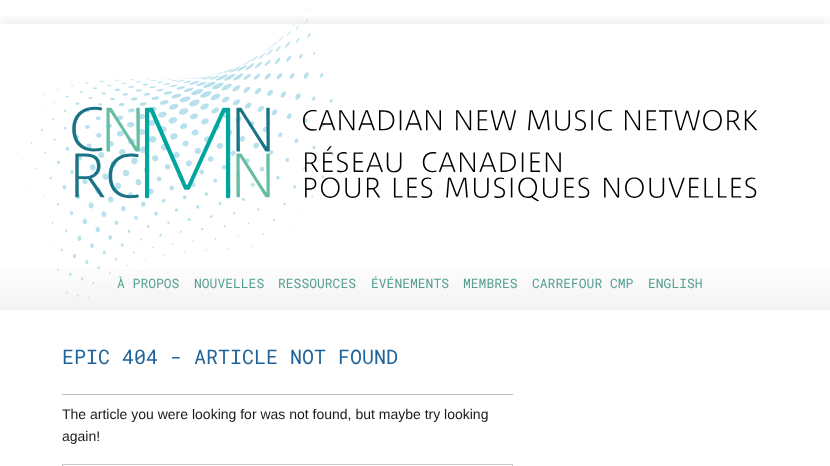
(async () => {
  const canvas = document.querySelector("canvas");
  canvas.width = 830;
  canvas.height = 466;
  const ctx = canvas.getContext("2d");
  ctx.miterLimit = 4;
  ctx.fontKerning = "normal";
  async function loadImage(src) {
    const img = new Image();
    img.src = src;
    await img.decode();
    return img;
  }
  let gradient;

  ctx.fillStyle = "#ffffff";
  ctx.fillRect(0, 0, 830, 466);
  ctx.save();
  ctx.beginPath();
  ctx.rect(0, 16, 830, 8);
  ctx.clip();
  ctx.fillStyle = "rgba(0, 0, 0, 0.2)";
  ctx.filter = "blur(10px)";
  ctx.beginPath();
  ctx.rect(0, 29, 830, 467);
  ctx.fill();
  ctx.filter = "none";
  ctx.restore();
  gradient = ctx.createLinearGradient(415, 24, 415, 310);
  gradient.addColorStop(0.82, "#ffffff");
  gradient.addColorStop(1, "#f3f3f3");
  ctx.fillStyle = gradient;
  ctx.fillRect(0, 269, 830, 41);
  ctx.drawImage(await loadImage("img/1.png"), 16, 8, 742, 295);
  ctx.fillStyle = "#bfbfbf";
  ctx.fillRect(62, 394, 451, 1);
  ctx.strokeStyle = "#cacaca";
  ctx.strokeRect(62.5, 464.5, 450, 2);
  ctx.font = "13px Roboto Mono";
  ctx.fillStyle = "#559f92";
  for (const [text, x, y] of [
    ["À PROPOS", 117, 288],
    ["NOUVELLES", 194, 288],
    ["RESSOURCES", 278, 288],
    ["ÉVÉNEMENTS", 371, 288],
    ["MEMBRES", 463, 288],
    ["CARREFOUR CMP", 532, 288],
    ["ENGLISH", 648, 288],
  ]) {
    ctx.fillText(text, x, y);
  }
  ctx.font = "20px Roboto Mono";
  ctx.fillStyle = "#20649b";
  ctx.fillText("EPIC 404 - ARTICLE NOT FOUND", 62, 364);
  ctx.font = "14px Liberation Sans";
  ctx.fillStyle = "#1a1a1a";
  ctx.fillText("The article you were looking for was not found, but maybe try looking", 62, 419);
  ctx.fillText("again!", 62, 441);
})();
